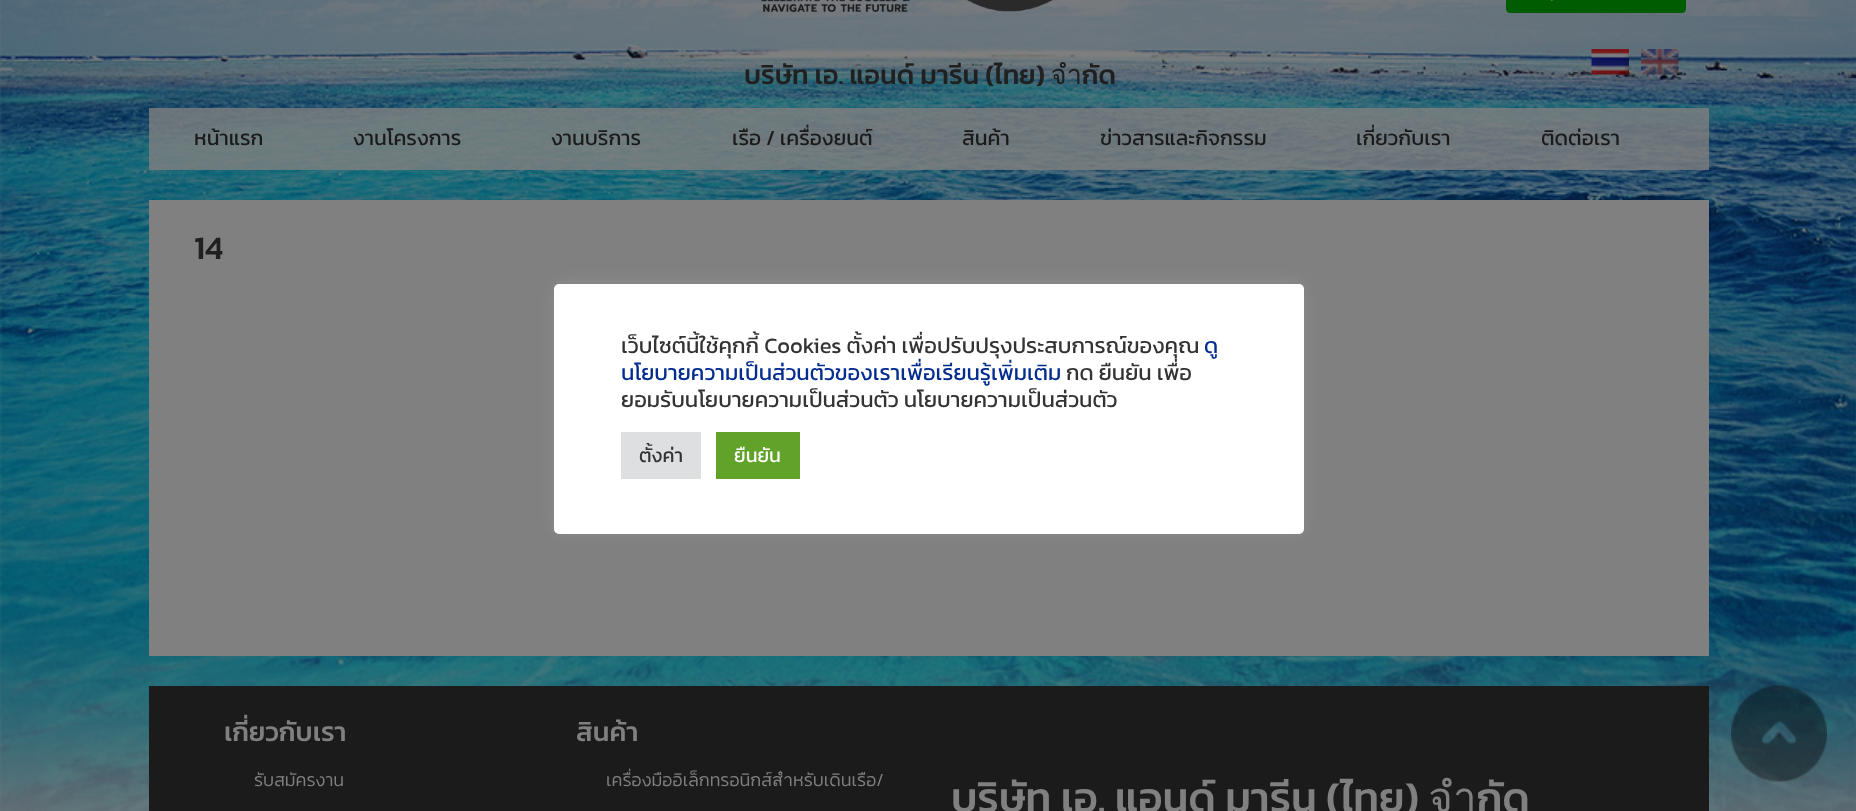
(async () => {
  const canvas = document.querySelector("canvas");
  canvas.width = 1856;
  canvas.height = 811;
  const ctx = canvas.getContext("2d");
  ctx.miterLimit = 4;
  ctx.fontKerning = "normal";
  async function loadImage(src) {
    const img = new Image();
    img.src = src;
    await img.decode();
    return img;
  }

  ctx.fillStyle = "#ffffff";
  ctx.fillRect(0, 0, 1856, 811);
  ctx.drawImage(await loadImage("img/1.png"), 0, 0, 1856, 811);
  ctx.drawImage(await loadImage("img/2.png"), 761, 0, 292, 12);
  ctx.drawImage(await loadImage("img/3.png"), 1506, 0, 180, 13);
  ctx.drawImage(await loadImage("img/4.png"), 1591, 49, 38, 26);
  ctx.drawImage(await loadImage("img/5.png"), 1641, 49, 38, 26);
  for (const [x, y, w, h, color] of [
    [149, 108, 1560, 62, "rgba(128, 128, 128, 0.8)"],
    [149, 200, 1560, 456, "#808080"],
    [149, 686, 1560, 125, "#1b1b1b"],
  ]) {
    ctx.fillStyle = color;
    ctx.fillRect(x, y, w, h);
  }
  ctx.fillStyle = "rgba(172, 171, 171, 0.3)";
  ctx.filter = "blur(7.5px)";
  ctx.beginPath();
  ctx.roundRect(554, 282, 750, 251, 5);
  ctx.fill();
  ctx.filter = "none";
  ctx.fillStyle = "#ffffff";
  ctx.beginPath();
  ctx.roundRect(554, 284, 750, 250, 5);
  ctx.fill();
  ctx.fillStyle = "#dedfe0";
  ctx.fillRect(621, 432, 80, 47);
  ctx.fillStyle = "#61a229";
  ctx.fillRect(716, 432, 84, 47);
  ctx.drawImage(await loadImage("img/6.png"), 1731, 685, 96, 97);
  ctx.font = "500 27px Kanit";
  ctx.fillStyle = "#202020";
  ctx.fillText("บริษัท เอ. แอนด์ มารีน (ไทย) จำกัด", 744, 84);
  ctx.font = "21px Kanit";
  ctx.fillStyle = "#1a1a1a";
  for (const [text, x, y] of [
    ["หน้าแรก", 194, 145],
    ["งานโครงการ", 353, 145],
    ["งานบริการ", 551, 145],
    ["เรือ / เครื่องยนต์", 732, 145],
    ["สินค้า", 962, 145],
    ["ข่าวสารและกิจกรรม", 1100, 145],
    ["เกี่ยวกับเรา", 1356, 145],
    ["ติดต่อเรา", 1541, 145],
  ]) {
    ctx.fillText(text, x, y);
  }
  ctx.font = "500 33px Kanit";
  ctx.fillStyle = "#202020";
  ctx.fillText("14", 194, 259);
  ctx.font = "500 27px Kanit";
  ctx.fillStyle = "#808080";
  ctx.fillText("เกี่ยวกับเรา", 224, 741);
  ctx.font = "300 18px Kanit";
  ctx.fillText("รับสมัครงาน", 254, 786);
  ctx.font = "500 27px Kanit";
  ctx.fillText("สินค้า", 576, 741);
  ctx.font = "300 18px Kanit";
  ctx.fillText("เครื่องมืออิเล็กทรอนิกส์สำหรับเดินเรือ/", 606, 786);
  ctx.font = "500 42px Kanit";
  ctx.fillText("บริษัท เอ. แอนด์ มารีน (ไทย) จำกัด", 951, 812);
  ctx.font = "22px Kanit";
  ctx.fillStyle = "#333333";
  ctx.fillText("เว็บไซต์นี้ใช้คุกกี้ Cookies ตั้งค่า เพื่อปรับปรุงประสบการณ์ของคุณ", 621, 353);
  ctx.fillStyle = "#022c8f";
  ctx.fillText("ดู", 1204, 353);
  ctx.fillText("นโยบายความเป็นส่วนตัวของเราเพื่อเรียนรู้เพิ่มเติม", 621, 380);
  ctx.fillStyle = "#333333";
  ctx.fillText("กด ยืนยัน เพื่อ", 1066, 380);
  ctx.fillText("ยอมรับนโยบายความเป็นส่วนตัว นโยบายความเป็นส่วนตัว", 621, 407);
  ctx.font = "19.5px Kanit";
  ctx.fillText("ตั้งค่า", 639, 462);
  ctx.fillStyle = "#ffffff";
  ctx.fillText("ยืนยัน", 734, 462);
})();
